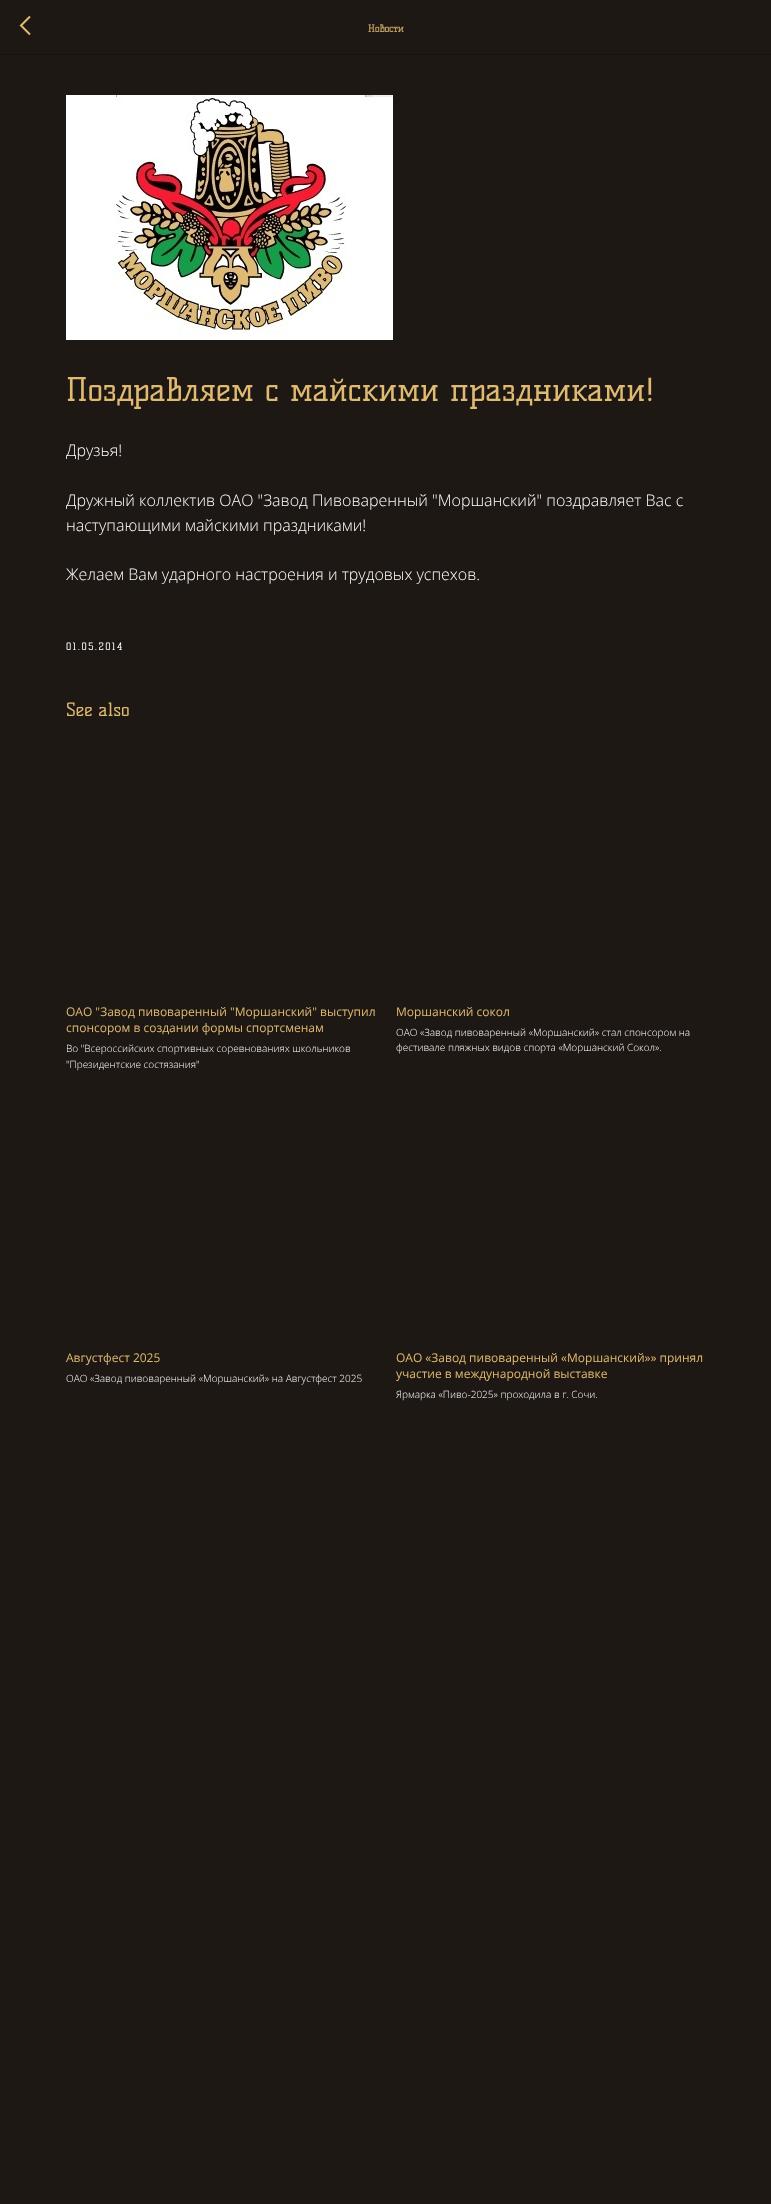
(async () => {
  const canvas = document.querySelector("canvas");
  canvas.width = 771;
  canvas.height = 2204;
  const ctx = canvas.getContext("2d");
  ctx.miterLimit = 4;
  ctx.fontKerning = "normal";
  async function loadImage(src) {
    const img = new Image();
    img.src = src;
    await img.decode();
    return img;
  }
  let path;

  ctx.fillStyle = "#1e1814";
  ctx.fillRect(0, 0, 771, 2204);
  ctx.fillStyle = "#181310";
  ctx.fillRect(0, 54, 771, 1);
  path = new Path2D("M30 34.5L21 25.5L30 16.5");
  ctx.strokeStyle = "#e0ba71";
  ctx.lineWidth = 2;
  ctx.stroke(path);
  ctx.drawImage(await loadImage("img/1.png"), 66, 95, 327, 245);
  ctx.font = "bold 10px Kelly Slab";
  ctx.fillStyle = "#b99a5e";
  ctx.fillText("Новости", 368, 32);
  ctx.font = "32px Kelly Slab";
  ctx.fillStyle = "#e0ba71";
  ctx.fillText("Поздравляем с майскими праздниками!", 66, 401);
  ctx.font = "300 16px Open Sans";
  ctx.fillStyle = "#ffffff";
  for (const [text, x, y] of [
    ["Друзья!", 66, 456],
    ["Дружный коллектив ОАО \"Завод Пивоваренный \"Моршанский\" поздравляет Вас с", 66, 506],
    ["наступающими майскими праздниками!", 66, 531],
    ["Желаем Вам ударного настроения и трудовых успехов.", 66, 580],
  ]) {
    ctx.fillText(text, x, y);
  }
  ctx.letterSpacing = "1.5px";
  ctx.font = "10px Kelly Slab";
  ctx.fillText("01.05.2014", 66, 650);
  ctx.letterSpacing = "0px";
  ctx.font = "18px Kelly Slab";
  ctx.fillStyle = "#e0ba71";
  ctx.fillText("See also", 66, 716);
  ctx.font = "12px Open Sans";
  ctx.fillText("ОАО \"Завод пивоваренный \"Моршанский\" выступил", 66, 1016);
  ctx.fillText("спонсором в создании формы спортсменам", 66, 1032);
  ctx.font = "300 10px Open Sans";
  ctx.fillStyle = "#ffffff";
  ctx.fillText("Во \"Всероссийских спортивных соревнованиях школьников", 66, 1052);
  ctx.fillText("\"Президентские состязания\"", 66, 1068);
  ctx.font = "12px Open Sans";
  ctx.fillStyle = "#e0ba71";
  ctx.fillText("Моршанский сокол", 396, 1016);
  ctx.font = "300 10px Open Sans";
  ctx.fillStyle = "#ffffff";
  ctx.fillText("ОАО «Завод пивоваренный «Моршанский» стал спонсором на", 396, 1036);
  ctx.fillText("фестивале пляжных видов спорта «Моршанский Сокол».", 396, 1051);
  ctx.font = "12px Open Sans";
  ctx.fillStyle = "#e0ba71";
  ctx.fillText("Августфест 2025", 66, 1362);
  ctx.font = "300 10px Open Sans";
  ctx.fillStyle = "#ffffff";
  ctx.fillText("ОАО «Завод пивоваренный «Моршанский» на Августфест 2025", 66, 1382);
  ctx.font = "12px Open Sans";
  ctx.fillStyle = "#e0ba71";
  ctx.fillText("ОАО «Завод пивоваренный «Моршанский»» принял", 396, 1362);
  ctx.fillText("участие в международной выставке", 396, 1378);
  ctx.font = "300 10px Open Sans";
  ctx.fillStyle = "#ffffff";
  ctx.fillText("Ярмарка «Пиво-2025» проходила в г. Сочи.", 396, 1398);
})();
